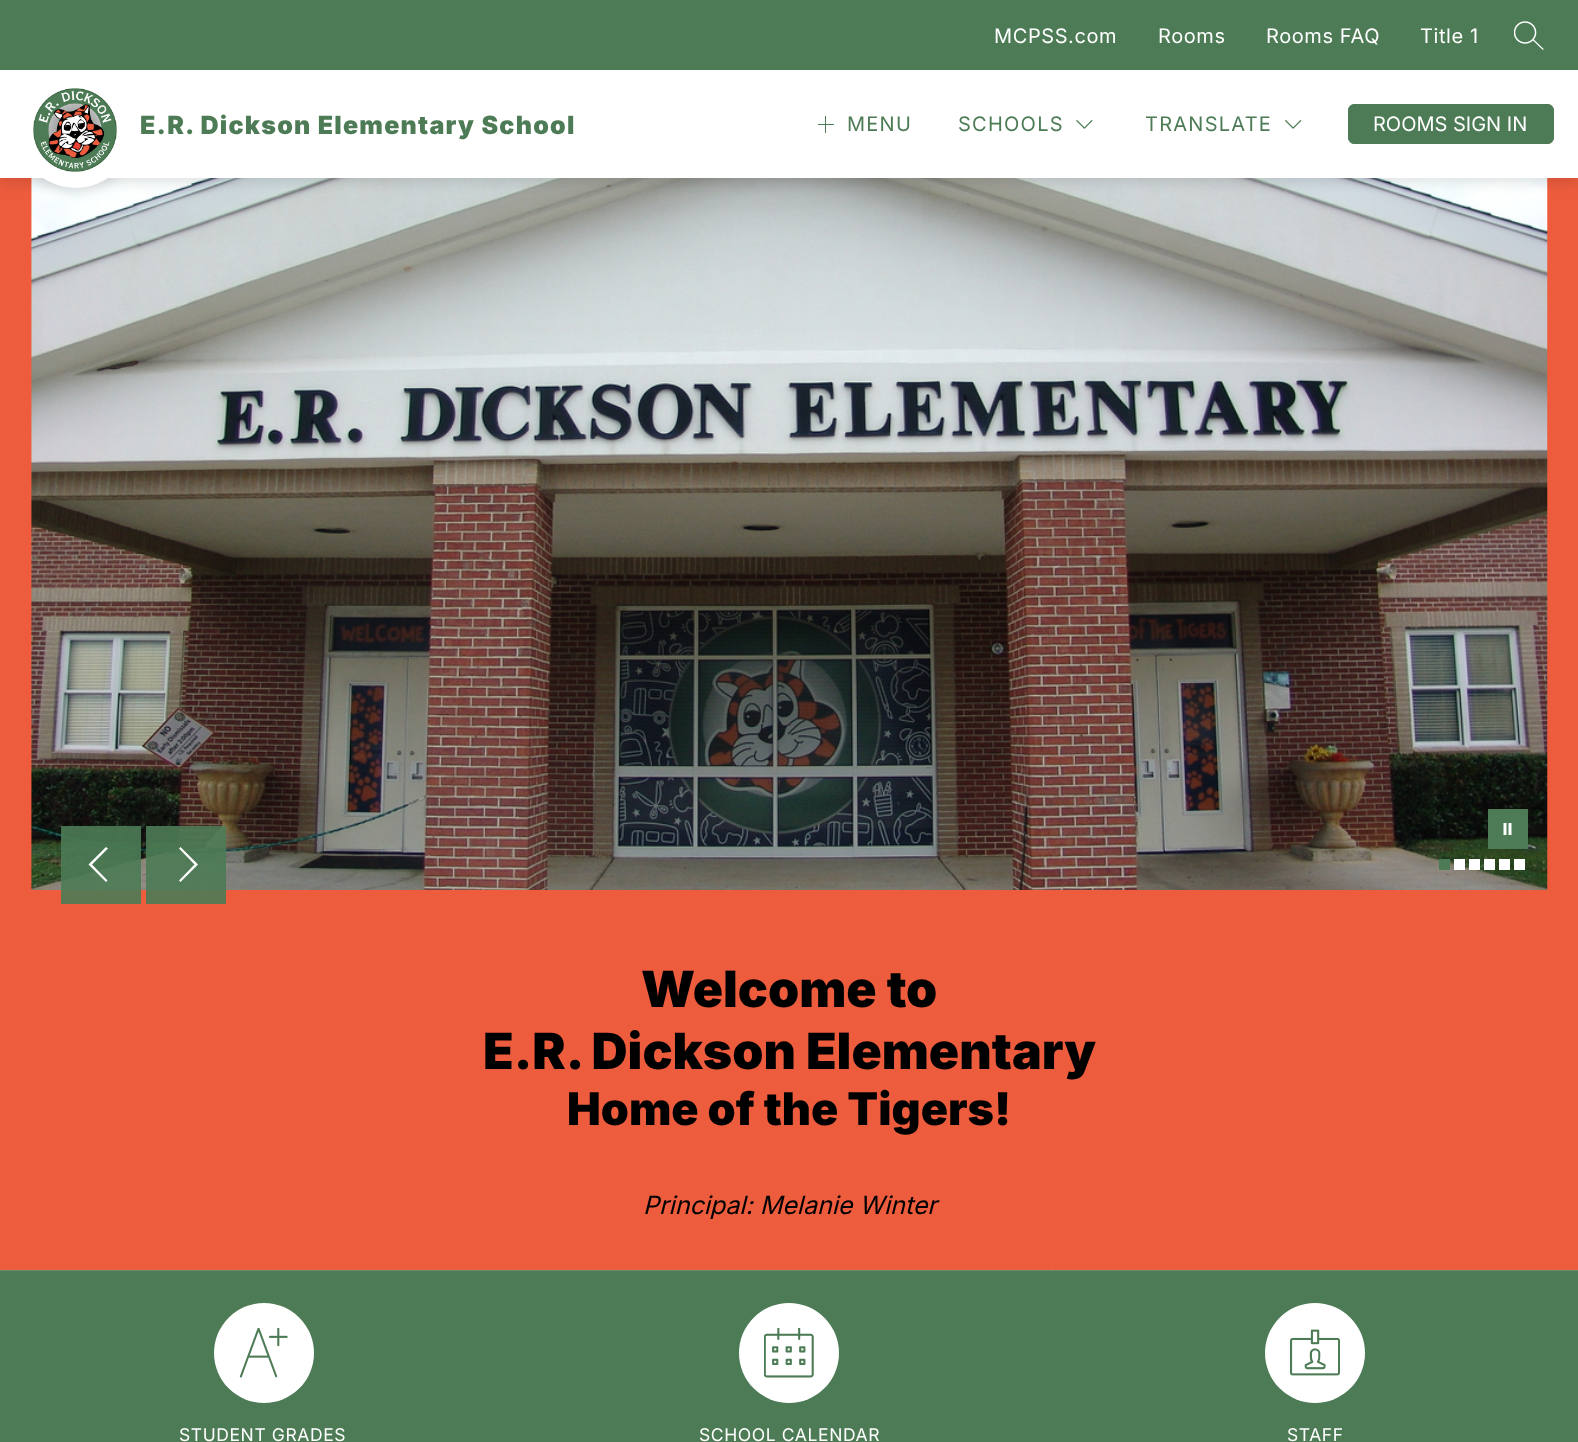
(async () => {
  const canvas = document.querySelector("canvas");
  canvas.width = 1578;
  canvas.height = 1442;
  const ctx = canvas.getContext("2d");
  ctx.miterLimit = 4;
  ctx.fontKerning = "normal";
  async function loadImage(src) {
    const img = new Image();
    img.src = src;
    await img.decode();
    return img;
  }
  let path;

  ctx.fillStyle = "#ec5c3d";
  ctx.fillRect(0, 0, 1578, 1442);
  ctx.drawImage(await loadImage("img/5.png"), 31, 178, 1517, 712);
  ctx.fillStyle = "rgba(0, 0, 0, 0.1)";
  ctx.filter = "blur(6px)";
  ctx.beginPath();
  ctx.rect(0, 5, 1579, 178);
  ctx.fill();
  ctx.filter = "none";
  ctx.filter = "blur(6px)";
  ctx.beginPath();
  ctx.roundRect(18, 78, 115, 115, 57.5);
  ctx.fill();
  ctx.filter = "none";
  ctx.fillStyle = "#4c7b55";
  ctx.fillRect(0, 0, 1578, 70);
  ctx.drawImage(await loadImage("img/1.png"), 1514, 21, 30, 29);
  ctx.fillStyle = "#ffffff";
  ctx.beginPath();
  ctx.arc(75.5, 130.5, 57.5, 0, Math.PI * 2);
  ctx.fill();
  ctx.fillRect(0, 70, 1578, 108);
  ctx.drawImage(await loadImage("img/2.png"), 33, 88, 84, 84);
  ctx.fillStyle = "#4c7b55";
  ctx.fillRect(825, 116, 1, 17);
  ctx.fillRect(818, 124, 16, 1);
  ctx.drawImage(await loadImage("img/3.png"), 1076, 120, 17, 9);
  ctx.drawImage(await loadImage("img/4.png"), 1285, 120, 17, 9);
  ctx.beginPath();
  ctx.roundRect(1348.5, 104.5, 205, 39, 5.5);
  ctx.fill();
  ctx.strokeStyle = "#4c7b55";
  ctx.stroke();
  ctx.fillRect(1488, 809, 40, 40);
  ctx.fillStyle = "#ffffff";
  path = new Path2D("M1506.5 823H1503.5V835H1506.5ZM1511.5 823H1508.5V835H1511.5Z");
  ctx.fill(path, "evenodd");
  for (const [x, y, w, h, color] of [
    [1439, 859, 11, 11, "#4c7b55"],
    [1454, 859, 11, 11, "#ffffff"],
    [1469, 859, 11, 11, "#ffffff"],
    [1484, 859, 11, 11, "#ffffff"],
    [1499, 859, 11, 11, "#ffffff"],
    [1514, 859, 11, 11, "#ffffff"],
    [61, 826, 80, 78, "rgba(76, 123, 85, 0.9)"],
  ]) {
    ctx.fillStyle = color;
    ctx.fillRect(x, y, w, h);
  }
  ctx.fillStyle = "#ffffff";
  path = new Path2D("M92 864.5L107.5 880.5L106 882L88.5 864.5L106 847L108 848.5Z");
  ctx.fill(path, "evenodd");
  ctx.fillStyle = "rgba(76, 123, 85, 0.9)";
  ctx.fillRect(146, 826, 80, 78);
  ctx.fillStyle = "#ffffff";
  path = new Path2D("M194.5 864.5L179 880.5L180.5 882L198 864.5L180.5 847L179 848.5Z");
  ctx.fill(path, "evenodd");
  ctx.fillStyle = "#4c7b55";
  ctx.fillRect(0, 1271, 1053, 171);
  ctx.fillStyle = "#678f6f";
  ctx.fillRect(0, 1270, 1053, 1);
  ctx.fillStyle = "#ffffff";
  ctx.beginPath();
  ctx.arc(264, 1353, 50, 0, Math.PI * 2);
  ctx.fill();
  ctx.drawImage(await loadImage("img/6.png"), 239, 1328, 49, 50);
  ctx.beginPath();
  ctx.arc(789, 1353, 50, 0, Math.PI * 2);
  ctx.fill();
  ctx.drawImage(await loadImage("img/7.png"), 764, 1328, 50, 50);
  ctx.fillStyle = "#4c7b55";
  ctx.fillRect(1053, 1270, 525, 172);
  ctx.fillStyle = "rgba(255, 255, 255, 0.15)";
  path = new Path2D("M1052 1270H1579L1578 1271H1052Z");
  ctx.fill(path);
  ctx.fillStyle = "#ffffff";
  ctx.beginPath();
  ctx.arc(1315, 1353, 50, 0, Math.PI * 2);
  ctx.fill();
  ctx.drawImage(await loadImage("img/8.png"), 1290, 1329, 50, 47);
  ctx.letterSpacing = "0.6px";
  ctx.font = "20px Inter";
  for (const [text, x, y] of [
    ["MCPSS.com", 994, 43],
    ["Rooms", 1158, 43],
    ["Rooms FAQ", 1266, 43],
    ["Title 1", 1420, 43],
  ]) {
    ctx.fillText(text, x, y);
  }
  ctx.letterSpacing = "1.25px";
  ctx.font = "900 25px Inter";
  ctx.fillStyle = "#4c7b55";
  ctx.fillText("E.R. Dickson Elementary School", 140, 134);
  ctx.font = "20px Inter";
  for (const [text, x, y] of [
    ["MENU", 847, 131],
    ["SCHOOLS", 958, 131],
    ["TRANSLATE", 1145, 131],
  ]) {
    ctx.fillText(text, x, y);
  }
  ctx.letterSpacing = "0px";
  ctx.fillStyle = "#ffffff";
  ctx.fillText("ROOMS SIGN IN", 1373, 131);
  ctx.font = "900 50px Inter";
  ctx.fillStyle = "#000000";
  ctx.fillText("Welcome to", 641, 1007);
  ctx.fillText("E.R. Dickson Elementary", 483, 1069);
  ctx.font = "900 45px Inter";
  ctx.fillText("Home of the Tigers!", 567, 1125);
  ctx.font = "italic 25px Inter";
  ctx.fillText("Principal: Melanie Winter", 643, 1214);
  ctx.letterSpacing = "0.6px";
  ctx.font = "17.5px Inter";
  ctx.fillStyle = "#ffffff";
  for (const [text, x, y] of [
    ["STUDENT GRADES", 179, 1441],
    ["SCHOOL CALENDAR", 699, 1441],
    ["STAFF", 1287, 1441],
  ]) {
    ctx.fillText(text, x, y);
  }
})();
